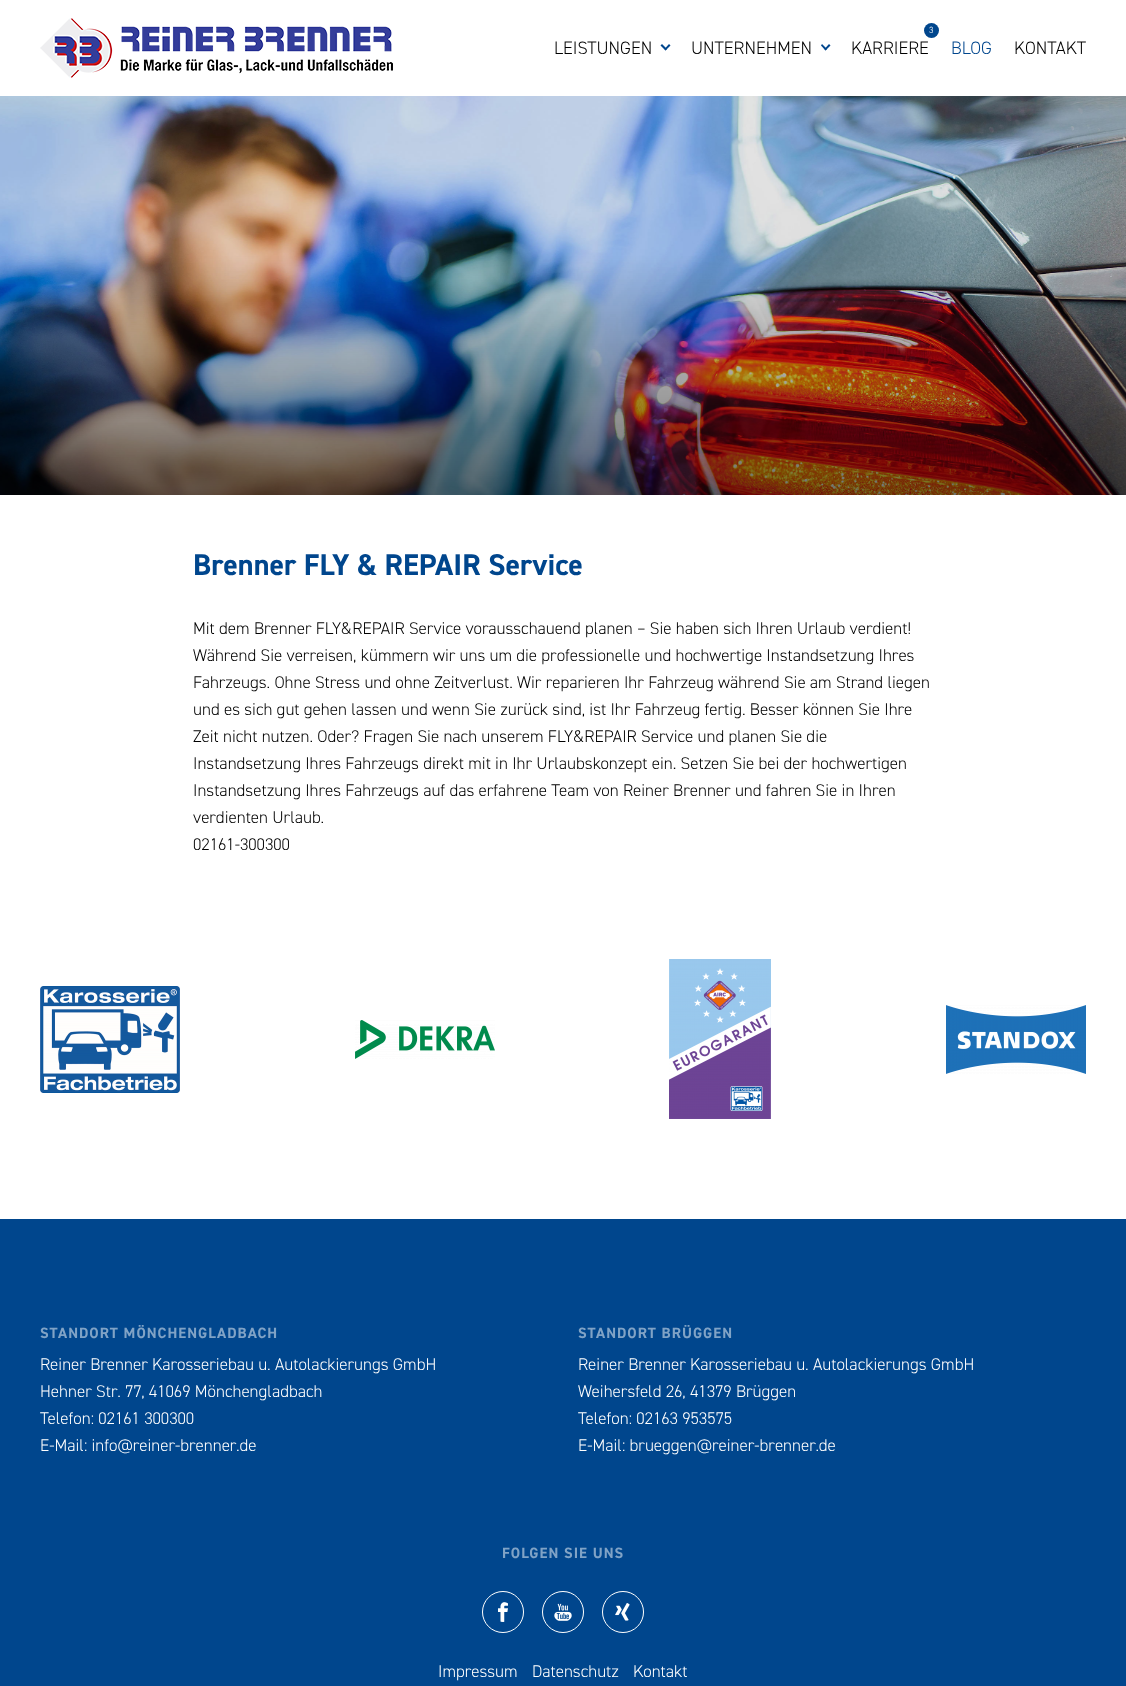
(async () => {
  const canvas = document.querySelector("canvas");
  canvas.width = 1126;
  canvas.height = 1686;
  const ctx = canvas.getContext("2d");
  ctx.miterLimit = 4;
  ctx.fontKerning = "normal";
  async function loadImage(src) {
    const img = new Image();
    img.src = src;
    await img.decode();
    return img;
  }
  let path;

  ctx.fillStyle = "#ffffff";
  ctx.fillRect(0, 0, 1126, 1686);
  ctx.drawImage(await loadImage("img/2.png"), 0, 96, 1126, 399);
  ctx.fillStyle = "rgba(0, 0, 0, 0.3)";
  ctx.filter = "blur(0.5px)";
  ctx.beginPath();
  ctx.rect(1, 2, 1124, 94);
  ctx.fill();
  ctx.filter = "none";
  ctx.fillStyle = "#ffffff";
  ctx.fillRect(0, 1, 1126, 95);
  ctx.drawImage(await loadImage("img/1.png"), 40, 18, 353, 60);
  ctx.fillStyle = "#00468d";
  path = new Path2D("M669 44L670.5 45.5L665.5 50.5L664.5 49Z");
  ctx.fill(path);
  path = new Path2D("M662 44L667 49L665.5 50.5L660.5 45.5Z");
  ctx.fill(path);
  path = new Path2D("M829 44L830.5 45.5L825.5 50.5L824.5 49Z");
  ctx.fill(path);
  path = new Path2D("M822 44L827 49L825.5 50.5L821 45.5Z");
  ctx.fill(path);
  ctx.beginPath();
  ctx.arc(931.5, 30.5, 7.5, 0, Math.PI * 2);
  ctx.fill();
  ctx.drawImage(await loadImage("img/3.png"), 40, 986, 140, 107);
  ctx.drawImage(await loadImage("img/4.png"), 355, 1020, 140, 39);
  ctx.drawImage(await loadImage("img/5.png"), 669, 959, 102, 160);
  ctx.drawImage(await loadImage("img/6.png"), 946, 1005, 140, 69);
  ctx.fillRect(0, 1219, 1126, 467);
  ctx.beginPath();
  ctx.arc(503, 1612, 20.5, 0, Math.PI * 2);
  ctx.strokeStyle = "#ffffff";
  ctx.stroke();
  ctx.beginPath();
  ctx.arc(563, 1612, 20.5, 0, Math.PI * 2);
  ctx.stroke();
  ctx.beginPath();
  ctx.arc(623, 1612, 20.5, 0, Math.PI * 2);
  ctx.stroke();
  ctx.drawImage(await loadImage("img/7.png"), 498, 1602, 10, 20);
  ctx.drawImage(await loadImage("img/8.png"), 554, 1603, 18, 18);
  ctx.drawImage(await loadImage("img/9.png"), 615, 1603, 15, 18);
  ctx.font = "300 18px 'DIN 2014'";
  ctx.fillStyle = "#000000";
  ctx.fillText("LEISTUNGEN", 554, 54);
  ctx.fillText("UNTERNEHMEN", 691, 54);
  ctx.font = "300 9px 'DIN 2014'";
  ctx.fillStyle = "#ffffff";
  ctx.fillText("3", 929, 33);
  ctx.font = "300 18px 'DIN 2014'";
  ctx.fillStyle = "#000000";
  ctx.fillText("KARRIERE", 851, 54);
  ctx.fillStyle = "#00468d";
  ctx.fillText("BLOG", 951, 54);
  ctx.fillStyle = "#000000";
  ctx.fillText("KONTAKT", 1014, 54);
  ctx.font = "bold 30px 'DIN 2014'";
  ctx.fillStyle = "#00468d";
  ctx.fillText("Brenner FLY & REPAIR Service", 193, 575);
  ctx.font = "300 17px 'DIN 2014'";
  ctx.fillStyle = "#000000";
  for (const [text, x, y] of [
    ["Mit dem Brenner FLY&REPAIR Service vorausschauend planen – Sie haben sich Ihren Urlaub verdient!", 193, 634],
    ["Während Sie verreisen, kümmern wir uns um die professionelle und hochwertige Instandsetzung Ihres", 193, 661],
    ["Fahrzeugs. Ohne Stress und ohne Zeitverlust. Wir reparieren Ihr Fahrzeug während Sie am Strand liegen", 193, 688],
    ["und es sich gut gehen lassen und wenn Sie zurück sind, ist Ihr Fahrzeug fertig. Besser können Sie Ihre", 193, 715],
    ["Zeit nicht nutzen. Oder? Fragen Sie nach unserem FLY&REPAIR Service und planen Sie die", 193, 742],
    ["Instandsetzung Ihres Fahrzeugs direkt mit in Ihr Urlaubskonzept ein. Setzen Sie bei der hochwertigen", 193, 769],
    ["Instandsetzung Ihres Fahrzeugs auf das erfahrene Team von Reiner Brenner und fahren Sie in Ihren", 193, 796],
    ["verdienten Urlaub.", 193, 823],
    ["02161-300300", 193, 850],
  ]) {
    ctx.fillText(text, x, y);
  }
  ctx.letterSpacing = "1px";
  ctx.font = "bold 15px 'DIN 2014'";
  ctx.fillStyle = "#80a3c6";
  ctx.fillText("STANDORT MÖNCHENGLADBACH", 40, 1338);
  ctx.letterSpacing = "0px";
  ctx.font = "300 17px 'DIN 2014'";
  ctx.fillStyle = "#ffffff";
  for (const [text, x, y] of [
    ["Reiner Brenner Karosseriebau u. Autolackierungs GmbH", 40, 1370],
    ["Hehner Str. 77, 41069 Mönchengladbach", 40, 1397],
    ["Telefon: 02161 300300", 40, 1424],
    ["E-Mail: info@reiner-brenner.de", 40, 1451],
  ]) {
    ctx.fillText(text, x, y);
  }
  ctx.letterSpacing = "1px";
  ctx.font = "bold 15px 'DIN 2014'";
  ctx.fillStyle = "#80a3c6";
  ctx.fillText("STANDORT BRÜGGEN", 578, 1338);
  ctx.letterSpacing = "0px";
  ctx.font = "300 17px 'DIN 2014'";
  ctx.fillStyle = "#ffffff";
  for (const [text, x, y] of [
    ["Reiner Brenner Karosseriebau u. Autolackierungs GmbH", 578, 1370],
    ["Weihersfeld 26, 41379 Brüggen", 578, 1397],
    ["Telefon: 02163 953575", 578, 1424],
    ["E-Mail: brueggen@reiner-brenner.de", 578, 1451],
  ]) {
    ctx.fillText(text, x, y);
  }
  ctx.letterSpacing = "1px";
  ctx.font = "bold 15px 'DIN 2014'";
  ctx.fillStyle = "#80a3c6";
  ctx.fillText("FOLGEN SIE UNS", 502, 1558);
  ctx.letterSpacing = "0px";
  ctx.font = "300 17px 'DIN 2014'";
  ctx.fillStyle = "#ffffff";
  for (const [text, x, y] of [
    ["Impressum", 438, 1677],
    ["Datenschutz", 532, 1677],
    ["Kontakt", 633, 1677],
  ]) {
    ctx.fillText(text, x, y);
  }
})();
